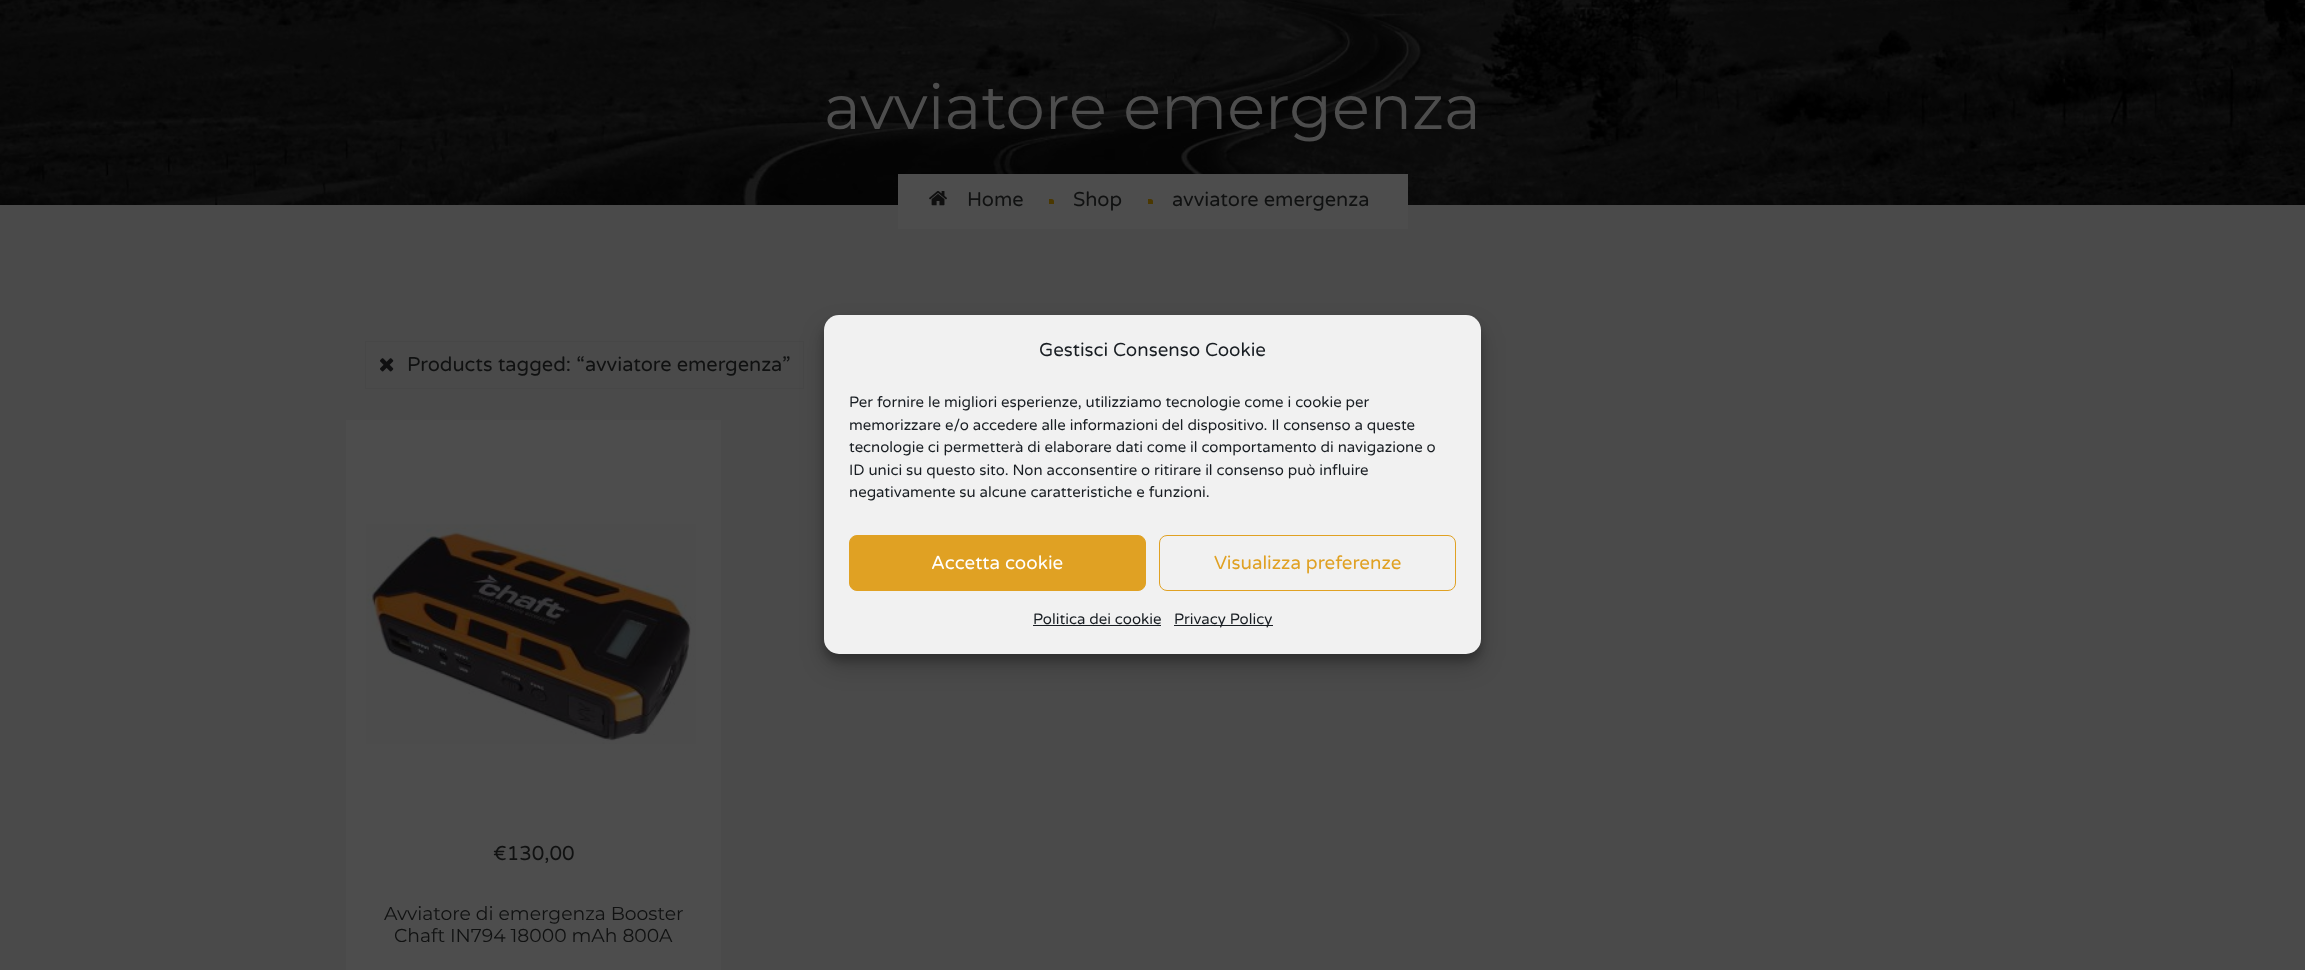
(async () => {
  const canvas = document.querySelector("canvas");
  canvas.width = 2305;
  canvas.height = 970;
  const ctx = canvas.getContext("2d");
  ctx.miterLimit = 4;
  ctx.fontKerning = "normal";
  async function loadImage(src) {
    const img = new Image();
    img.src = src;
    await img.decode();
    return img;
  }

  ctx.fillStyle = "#4a4a4a";
  ctx.fillRect(0, 0, 2305, 970);
  ctx.drawImage(await loadImage("img/1.png"), 0, 0, 2305, 205);
  ctx.fillStyle = "#4d4d4d";
  ctx.fillRect(898, 174, 510, 55);
  ctx.drawImage(await loadImage("img/2.png"), 929, 191, 18, 15);
  ctx.fillStyle = "#4b3800";
  ctx.beginPath();
  ctx.roundRect(1049, 199, 5, 5, [0, 2.5, 0, 0]);
  ctx.fill();
  ctx.beginPath();
  ctx.roundRect(1148, 199, 5, 5, [0, 2.5, 0, 0]);
  ctx.fill();
  ctx.strokeStyle = "#474747";
  ctx.strokeRect(365.5, 341.5, 438, 47);
  ctx.drawImage(await loadImage("img/3.png"), 380, 358, 14, 14);
  ctx.fillStyle = "rgba(0, 0, 0, 0.4)";
  ctx.filter = "blur(0.5px)";
  ctx.beginPath();
  ctx.rect(346, 420, 375, 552);
  ctx.fill();
  ctx.filter = "none";
  ctx.fillStyle = "#4d4d4d";
  ctx.fillRect(346, 420, 375, 550);
  ctx.drawImage(await loadImage("img/4.png"), 366, 524, 330, 220);
  ctx.fillStyle = "rgba(0, 0, 0, 0.23)";
  ctx.filter = "blur(4px)";
  ctx.beginPath();
  ctx.roundRect(824, 323, 657, 338, 15);
  ctx.fill();
  ctx.filter = "none";
  ctx.fillStyle = "rgba(0, 0, 0, 0.19)";
  ctx.filter = "blur(12.5px)";
  ctx.beginPath();
  ctx.roundRect(824, 328, 657, 338, 15);
  ctx.fill();
  ctx.filter = "none";
  ctx.fillStyle = "#f1f1f1";
  ctx.beginPath();
  ctx.roundRect(824, 315, 657, 339, 15);
  ctx.fill();
  ctx.fillStyle = "#e0a123";
  ctx.beginPath();
  ctx.roundRect(849.5, 535.5, 296, 55, 7.5);
  ctx.fill();
  ctx.strokeStyle = "#e0a123";
  ctx.stroke();
  ctx.beginPath();
  ctx.roundRect(1159.5, 535.5, 296, 55, 7.5);
  ctx.stroke();
  ctx.fillStyle = "#191e23";
  ctx.fillRect(1033, 625, 128, 1);
  ctx.fillRect(1174, 625, 99, 1);
  ctx.font = "62.5px Montserrat";
  ctx.fillStyle = "#4d4d4d";
  ctx.fillText("avviatore emergenza", 824, 129);
  ctx.font = "20px Varela Round";
  ctx.fillStyle = "#101111";
  for (const [text, x, y] of [
    ["Home", 967, 206],
    ["Shop", 1073, 206],
    ["avviatore emergenza", 1172, 206],
    ["Products tagged: “avviatore emergenza”", 407, 371],
    ["€130,00", 493, 860],
  ]) {
    ctx.fillText(text, x, y);
  }
  ctx.font = "18.75px Montserrat";
  ctx.fillText("Avviatore di emergenza Booster", 384, 920);
  ctx.fillText("Chaft IN794 18000 mAh 800A", 394, 942);
  ctx.font = "18.75px Varela Round";
  ctx.fillStyle = "#191e23";
  ctx.fillText("Gestisci Consenso Cookie", 1039, 356);
  ctx.font = "15px Varela Round";
  for (const [text, x, y] of [
    ["Per fornire le migliori esperienze, utilizziamo tecnologie come i cookie per", 849, 407],
    ["memorizzare e/o accedere alle informazioni del dispositivo. Il consenso a queste", 849, 430],
    ["tecnologie ci permetterà di elaborare dati come il comportamento di navigazione o", 849, 452],
    ["ID unici su questo sito. Non acconsentire o ritirare il consenso può influire", 849, 475],
    ["negativamente su alcune caratteristiche e funzioni.", 849, 497],
  ]) {
    ctx.fillText(text, x, y);
  }
  ctx.font = "18.75px Varela Round";
  ctx.fillStyle = "#ffffff";
  ctx.fillText("Accetta cookie", 931, 569);
  ctx.fillStyle = "#e0a123";
  ctx.fillText("Visualizza preferenze", 1214, 569);
  ctx.font = "15px Varela Round";
  ctx.fillStyle = "#191e23";
  ctx.fillText("Politica dei cookie", 1033, 624);
  ctx.fillText("Privacy Policy", 1174, 624);
})();
